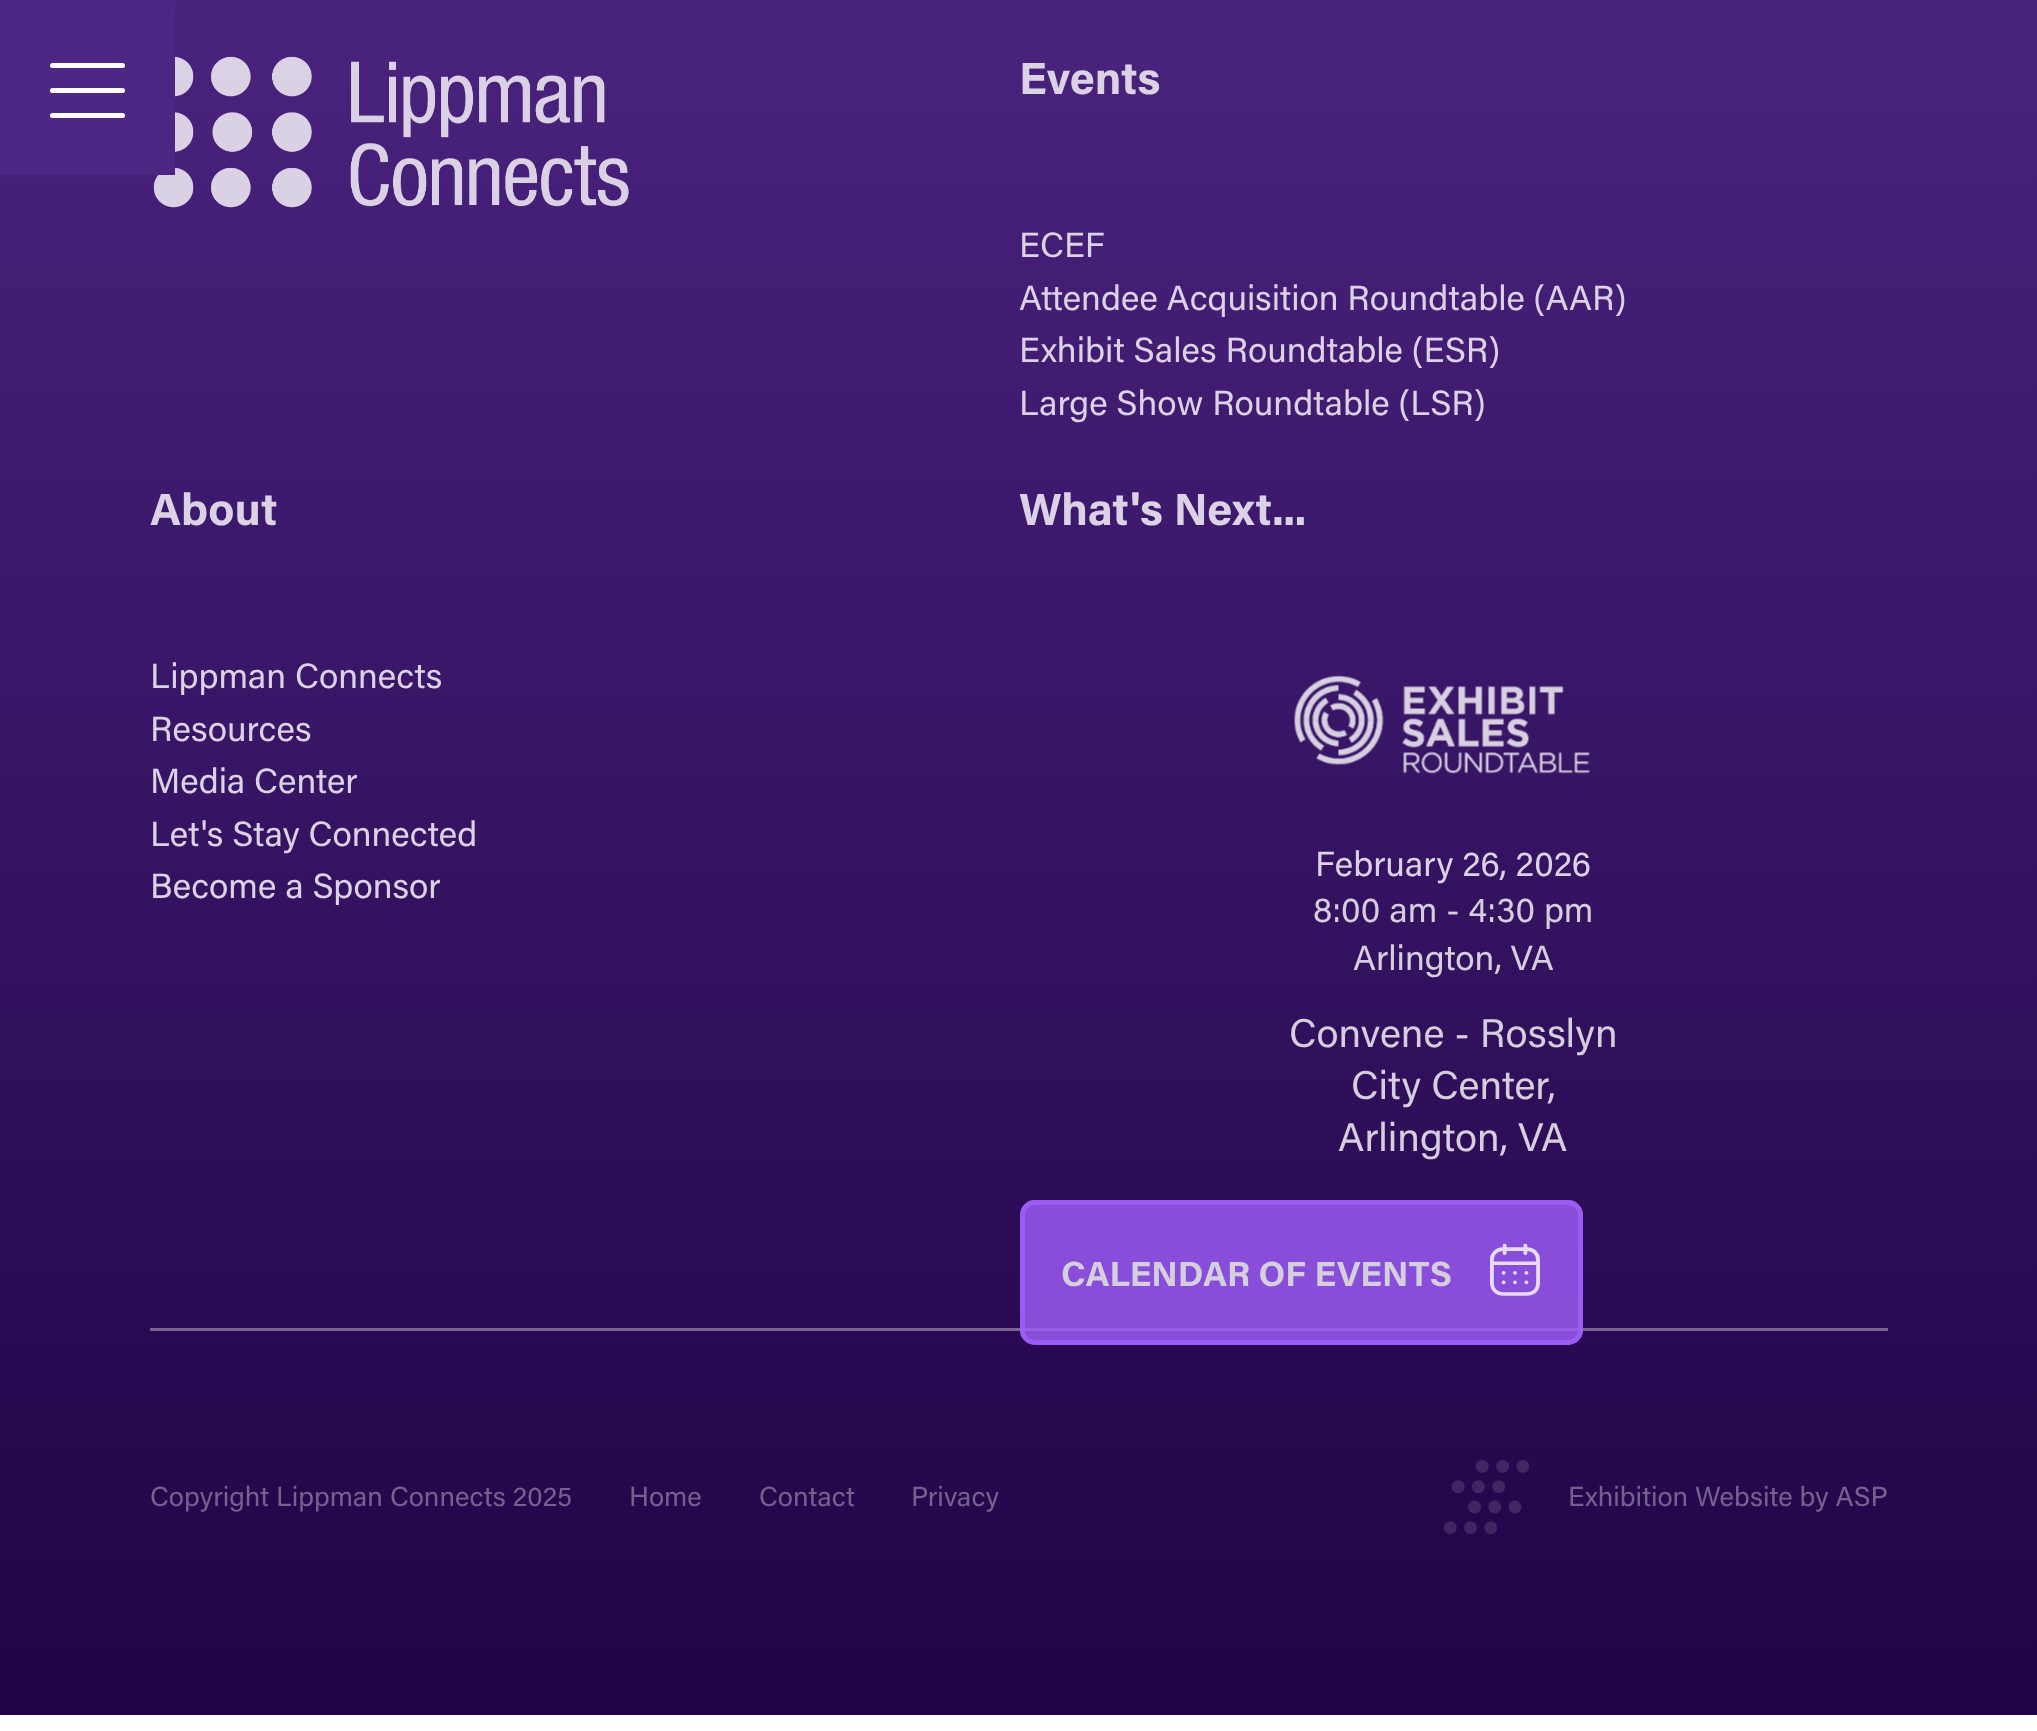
(async () => {
  const canvas = document.querySelector("canvas");
  canvas.width = 2037;
  canvas.height = 1731;
  const ctx = canvas.getContext("2d");
  ctx.miterLimit = 4;
  ctx.fontKerning = "normal";
  async function loadImage(src) {
    const img = new Image();
    img.src = src;
    await img.decode();
    return img;
  }
  let gradient;

  ctx.fillStyle = "#ffffff";
  ctx.fillRect(0, 0, 2037, 1731);
  gradient = ctx.createLinearGradient(1019, 1715, 1019, -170);
  gradient.addColorStop(0, "#200346");
  gradient.addColorStop(1, "#4e2683");
  ctx.fillStyle = gradient;
  ctx.fillRect(0, 0, 2037, 1715);
  ctx.drawImage(await loadImage("img/1.png"), 153, 56, 476, 152);
  ctx.fillStyle = "#4e2683";
  ctx.fillRect(0, 0, 175, 175);
  ctx.fillStyle = "#ffffff";
  ctx.beginPath();
  ctx.roundRect(50, 88, 75, 5, 2.5);
  ctx.fill();
  ctx.beginPath();
  ctx.roundRect(50, 63, 75, 5, 2.5);
  ctx.fill();
  ctx.beginPath();
  ctx.roundRect(50, 113, 75, 5, 2.5);
  ctx.fill();
  ctx.drawImage(await loadImage("img/2.png"), 1294, 675, 297, 99);
  ctx.fillStyle = "#77648f";
  ctx.fillRect(150, 1328, 1738, 3);
  ctx.fillStyle = "rgba(161, 95, 250, 0.8)";
  ctx.beginPath();
  ctx.roundRect(1020, 1200, 563, 145, 15);
  ctx.fill();
  ctx.beginPath();
  ctx.roundRect(1022.5, 1202.5, 558, 140, 12.5);
  ctx.strokeStyle = "rgba(161, 95, 250, 0.8)";
  ctx.lineWidth = 5;
  ctx.stroke();
  ctx.drawImage(await loadImage("img/3.png"), 1490, 1243, 50, 53);
  ctx.drawImage(await loadImage("img/4.png"), 1443, 1460, 87, 74);
  ctx.font = "bold 45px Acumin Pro";
  ctx.fillStyle = "#dbd3e5";
  ctx.fillText("Events", 1019, 94);
  ctx.font = "35px Acumin Pro";
  for (const [text, x, y] of [
    ["ECEF", 1019, 257],
    ["Attendee Acquisition Roundtable (AAR)", 1019, 310],
    ["Exhibit Sales Roundtable (ESR)", 1019, 362],
    ["Large Show Roundtable (LSR)", 1019, 415],
  ]) {
    ctx.fillText(text, x, y);
  }
  ctx.font = "bold 45px Acumin Pro";
  ctx.fillText("About", 150, 525);
  ctx.font = "35px Acumin Pro";
  for (const [text, x, y] of [
    ["Lippman Connects", 150, 688],
    ["Resources", 150, 741],
    ["Media Center", 150, 793],
    ["Let's Stay Connected", 150, 846],
    ["Become a Sponsor", 150, 898],
  ]) {
    ctx.fillText(text, x, y);
  }
  ctx.font = "bold 45px Acumin Pro";
  ctx.fillText("What's Next...", 1019, 525);
  ctx.font = "35px Acumin Pro";
  ctx.fillText("February 26, 2026", 1315, 876);
  ctx.fillStyle = "#d5cedd";
  ctx.fillText("8:00 am - 4:30 pm", 1313, 922);
  ctx.fillText("Arlington, VA", 1353, 970);
  ctx.font = "40px Acumin Pro";
  for (const [text, x, y] of [
    ["Convene - Rosslyn", 1289, 1047],
    ["City Center,", 1351, 1099],
    ["Arlington, VA", 1338, 1151],
  ]) {
    ctx.fillText(text, x, y);
  }
  ctx.font = "bold 35px Acumin Pro";
  ctx.fillText("CALENDAR OF EVENTS", 1061, 1286);
  ctx.font = "27.5px Acumin Pro";
  ctx.fillStyle = "#74628c";
  for (const [text, x, y] of [
    ["Copyright Lippman Connects 2025", 150, 1506],
    ["Home", 629, 1506],
    ["Contact", 759, 1506],
    ["Privacy", 911, 1506],
    ["Exhibition Website by ASP", 1568, 1506],
  ]) {
    ctx.fillText(text, x, y);
  }
})();
